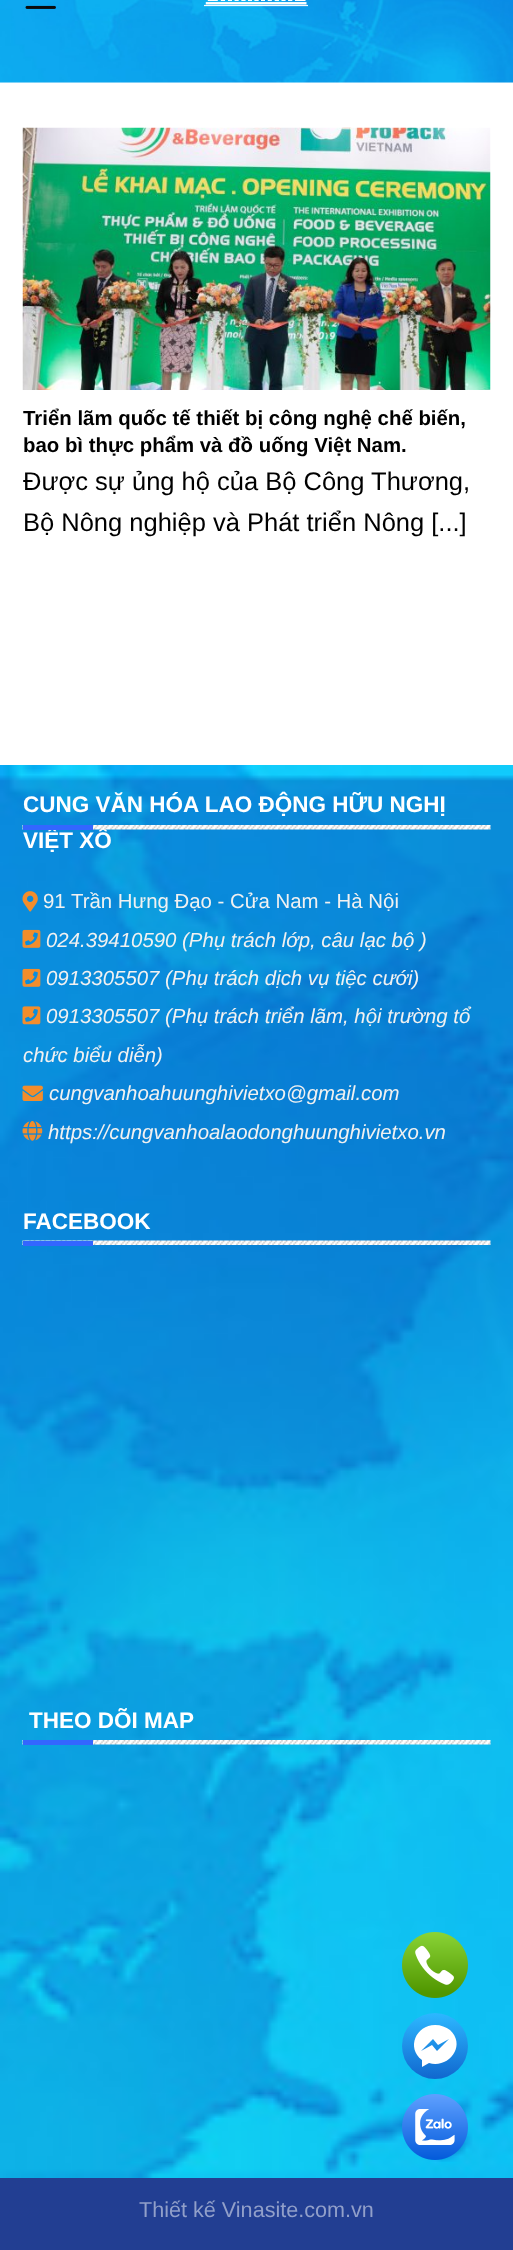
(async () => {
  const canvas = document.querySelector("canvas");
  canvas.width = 513;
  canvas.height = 2250;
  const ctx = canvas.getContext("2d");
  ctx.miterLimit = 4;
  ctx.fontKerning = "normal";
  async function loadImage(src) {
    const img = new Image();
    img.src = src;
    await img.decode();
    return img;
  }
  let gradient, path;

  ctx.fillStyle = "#ffffff";
  ctx.fillRect(0, 0, 513, 2250);
  ctx.drawImage(await loadImage("img/4.png"), 0, 82, 513, 1);
  ctx.drawImage(await loadImage("img/1.png"), 0, 0, 513, 83);
  ctx.drawImage(await loadImage("img/2.png"), 25, 5, 31, 4);
  ctx.drawImage(await loadImage("img/3.png"), 204, 0, 104, 7);
  ctx.drawImage(await loadImage("img/5.png"), 22, 127, 469, 263);
  ctx.drawImage(await loadImage("img/6.png"), 0, 765, 513, 1413);
  ctx.drawImage(await loadImage("img/8.png"), 22, 891, 16, 21);
  ctx.drawImage(await loadImage("img/9.png"), 22, 929, 19, 19);
  ctx.drawImage(await loadImage("img/10.png"), 22, 968, 19, 19);
  ctx.drawImage(await loadImage("img/11.png"), 22, 1006, 19, 19);
  ctx.drawImage(await loadImage("img/12.png"), 22, 1085, 21, 16);
  ctx.drawImage(await loadImage("img/13.png"), 22, 1121, 21, 20);
  ctx.drawImage(await loadImage("img/14.png"), 22, 1240, 469, 5);
  ctx.fillStyle = "#3366ff";
  ctx.fillRect(23, 1241, 70, 5);
  ctx.drawImage(await loadImage("img/15.png"), 22, 1740, 469, 5);
  ctx.fillRect(23, 1740, 70, 5);
  ctx.fillStyle = "#223e92";
  ctx.fillRect(0, 2178, 513, 72);
  ctx.drawImage(await loadImage("img/16.png"), 402, 1932, 66, 66);
  gradient = ctx.createLinearGradient(434, 2078, 434, 2014);
  gradient.addColorStop(0, "#1168cf");
  gradient.addColorStop(1, "#2cb7ff");
  ctx.fillStyle = gradient;
  ctx.beginPath();
  ctx.arc(435, 2046, 33, 0, Math.PI * 2);
  ctx.fill();
  ctx.fillStyle = "#ffffff";
  path = new Path2D("M435 2025C416 2025 406 2048 422 2060V2067L429 2063C448 2069 467 2046 450 2030C446 2027 441 2025 435 2025ZM437 2051L432 2045L421 2051L433 2039L438 2045L449 2039Z");
  ctx.fill(path, "evenodd");
  ctx.drawImage(await loadImage("img/17.png"), 402, 2094, 66, 66);
  ctx.font = "bold 20.4px Liberation Sans";
  ctx.fillStyle = "#000000";
  ctx.fillText("Triển lãm quốc tế thiết bị công nghệ chế biến,", 23, 425);
  ctx.fillText("bao bì thực phẩm và đồ uống Việt Nam.", 23, 452);
  ctx.font = "25.5px Liberation Sans";
  ctx.fillText("Được sự ủng hộ của Bộ Công Thương,", 23, 490);
  ctx.fillText("Bộ Nông nghiệp và Phát triển Nông [...]", 23, 531);
  ctx.font = "bold 22.5px Liberation Sans";
  ctx.fillStyle = "#ffffff";
  ctx.fillText("CUNG VĂN HÓA LAO ĐỘNG HỮU NGHỊ", 23, 812);
  ctx.fillText("VIỆT XÔ", 23, 848);
  ctx.drawImage(await loadImage("img/7.png"), 22, 825, 469, 5);
  ctx.fillStyle = "#3366ff";
  ctx.fillRect(23, 825, 70, 5);
  ctx.font = "20.4px Liberation Sans";
  ctx.fillStyle = "#f1f1f1";
  ctx.fillText("91 Trần Hưng Đạo - Cửa Nam - Hà Nội", 43, 908);
  ctx.font = "italic 20.4px Liberation Sans";
  for (const [text, x, y] of [
    ["024.39410590 (Phụ trách lớp, câu lạc bộ )", 46, 947],
    ["0913305507 (Phụ trách dịch vụ tiệc cưới)", 46, 985],
    ["0913305507 (Phụ trách triển lãm, hội trường tổ", 46, 1023],
    ["chức biểu diễn)", 23, 1062],
    ["cungvanhoahuunghivietxo@gmail.com", 49, 1100],
    ["https://cungvanhoalaodonghuunghivietxo.vn", 48, 1139],
  ]) {
    ctx.fillText(text, x, y);
  }
  ctx.font = "bold 22.5px Liberation Sans";
  ctx.fillStyle = "#ffffff";
  ctx.fillText("FACEBOOK", 23, 1229);
  ctx.fillText("THEO DÕI MAP", 29, 1728);
  ctx.font = "21.6px Liberation Sans";
  ctx.fillStyle = "#919fc9";
  ctx.fillText("Thiết kế Vinasite.com.vn", 139, 2217);
})();
